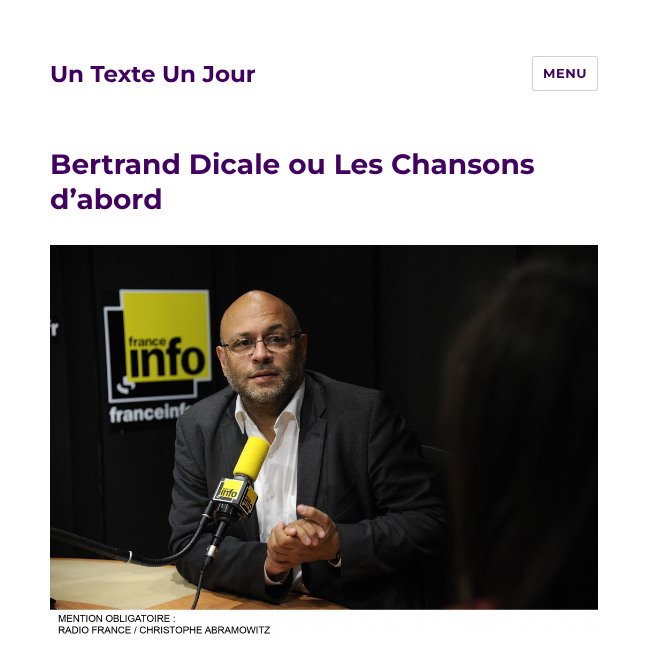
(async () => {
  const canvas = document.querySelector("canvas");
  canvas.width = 648;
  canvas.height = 653;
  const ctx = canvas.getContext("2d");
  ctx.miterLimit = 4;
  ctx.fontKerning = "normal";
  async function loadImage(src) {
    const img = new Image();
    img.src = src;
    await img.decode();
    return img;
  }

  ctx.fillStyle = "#ffffff";
  ctx.fillRect(0, 0, 648, 653);
  ctx.beginPath();
  ctx.roundRect(532.5, 56.5, 65, 34, 1.5);
  ctx.strokeStyle = "#d9ccdf";
  ctx.stroke();
  ctx.drawImage(await loadImage("img/1.png"), 50, 245, 548, 390);
  ctx.font = "bold 23px Montserrat";
  ctx.fillStyle = "#420060";
  ctx.fillText("Un Texte Un Jour", 50, 82);
  ctx.letterSpacing = "0.5px";
  ctx.font = "bold 13px Montserrat";
  ctx.fillText("MENU", 543, 78);
  ctx.letterSpacing = "0px";
  ctx.font = "bold 28px Montserrat";
  ctx.fillText("Bertrand Dicale ou Les Chansons", 50, 174);
  ctx.fillText("d’abord", 50, 209);
})();
